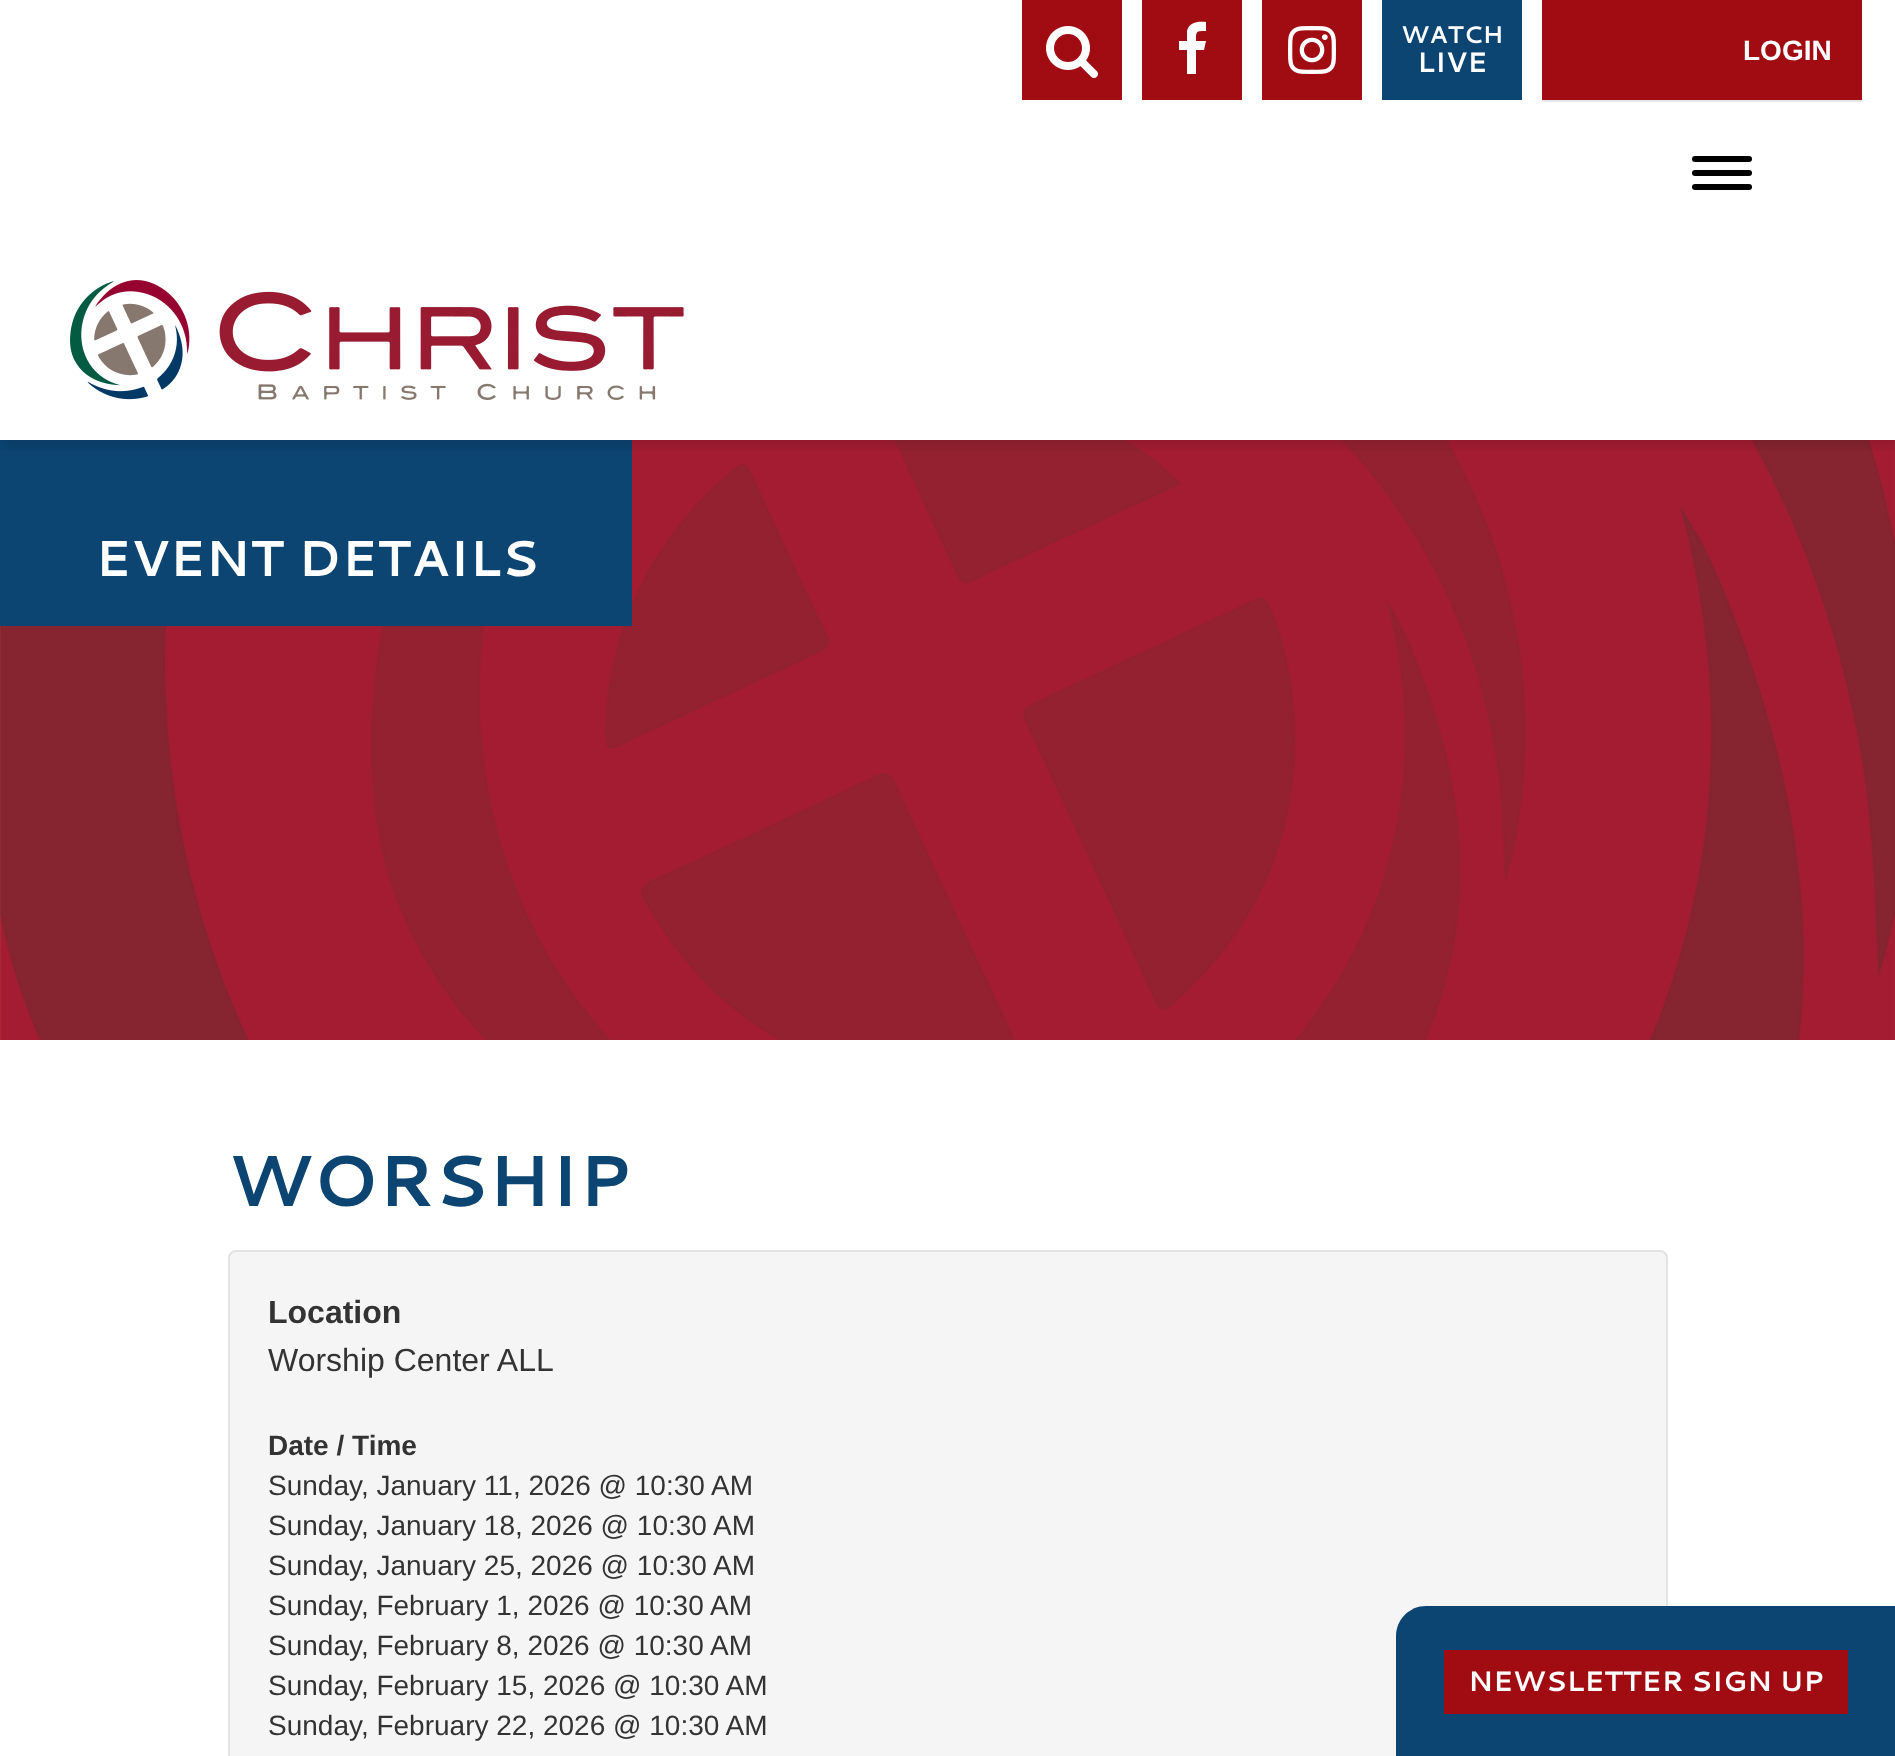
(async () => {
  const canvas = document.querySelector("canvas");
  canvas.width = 1895;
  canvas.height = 1756;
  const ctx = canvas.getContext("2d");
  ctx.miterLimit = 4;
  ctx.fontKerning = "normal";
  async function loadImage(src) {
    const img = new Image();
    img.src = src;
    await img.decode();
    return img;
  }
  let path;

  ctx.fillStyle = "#ffffff";
  ctx.fillRect(0, 0, 1895, 1756);
  ctx.drawImage(await loadImage("img/4.png"), 0, 440, 1895, 600);
  ctx.fillStyle = "#0c4472";
  ctx.fillRect(0, 440, 632, 186);
  ctx.save();
  ctx.beginPath();
  ctx.rect(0, 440, 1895, 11);
  ctx.clip();
  ctx.fillStyle = "rgba(0, 0, 0, 0.1)";
  ctx.filter = "blur(6px)";
  ctx.beginPath();
  ctx.rect(2, 10, 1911, 436);
  ctx.fill();
  ctx.filter = "none";
  ctx.restore();
  ctx.fillStyle = "#a10c13";
  ctx.fillRect(1022, 0, 100, 100);
  ctx.drawImage(await loadImage("img/1.png"), 1046, 26, 52, 52);
  ctx.fillRect(1142, 0, 100, 100);
  ctx.fillStyle = "#ffffff";
  path = new Path2D("M1206 22V31C1196 31 1196 31 1196 41H1206L1204 50H1196V74H1187V50H1179V41H1187V31C1189 22 1198 21 1206 22Z");
  ctx.fill(path);
  ctx.fillStyle = "#a10c13";
  ctx.fillRect(1262, 0, 100, 100);
  ctx.drawImage(await loadImage("img/2.png"), 1288, 26, 48, 48);
  for (const [x, y, w, h, color] of [
    [1382, 0, 140, 100, "#0c4472"],
    [1542, 0, 320, 100, "#a10c13"],
    [1542, 100, 320, 2, "#e5e7eb"],
  ]) {
    ctx.fillStyle = color;
    ctx.fillRect(x, y, w, h);
  }
  ctx.fillStyle = "#000000";
  ctx.beginPath();
  ctx.roundRect(1692, 156, 60, 6, 3);
  ctx.fill();
  ctx.beginPath();
  ctx.roundRect(1692, 170, 60, 6, 3);
  ctx.fill();
  ctx.beginPath();
  ctx.roundRect(1692, 184, 60, 6, 3);
  ctx.fill();
  ctx.drawImage(await loadImage("img/3.png"), 70, 280, 614, 120);
  ctx.fillStyle = "#f5f5f5";
  ctx.beginPath();
  ctx.roundRect(229, 1251, 1438, 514, 7);
  ctx.fill();
  ctx.strokeStyle = "#e3e3e3";
  ctx.lineWidth = 2;
  ctx.stroke();
  ctx.fillStyle = "#0c4472";
  path = new Path2D("M1426 1606H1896V1756H1396V1636C1396 1619.5 1409.5 1606 1426 1606Z");
  ctx.fill(path);
  ctx.fillStyle = "#a10c13";
  ctx.fillRect(1444, 1650, 404, 64);
  ctx.font = "bold 24px Cantarell";
  ctx.fillStyle = "#ffffff";
  ctx.fillText("WATCH", 1401, 43);
  ctx.font = "bold 28px Cantarell";
  ctx.fillText("LIVE", 1417, 72);
  ctx.font = "bold 28px Liberation Sans";
  ctx.fillText("LOGIN", 1743, 60);
  ctx.font = "bold 50.5px Cantarell";
  ctx.fillText("EVENT DETAILS", 95, 576);
  ctx.font = "bold 72px Cantarell";
  ctx.fillStyle = "#0c4472";
  ctx.fillText("WORSHIP", 228, 1206);
  ctx.font = "bold 32px Liberation Sans";
  ctx.fillStyle = "#333333";
  ctx.fillText("Location", 268, 1323);
  ctx.font = "32px Liberation Sans";
  ctx.fillText("Worship Center ALL", 268, 1371);
  ctx.font = "bold 28px Liberation Sans";
  ctx.fillText("Date / Time", 268, 1455);
  ctx.font = "28px Liberation Sans";
  for (const [text, x, y] of [
    ["Sunday, January 11, 2026 @ 10:30 AM", 268, 1495],
    ["Sunday, January 18, 2026 @ 10:30 AM", 268, 1535],
    ["Sunday, January 25, 2026 @ 10:30 AM", 268, 1575],
    ["Sunday, February 1, 2026 @ 10:30 AM", 268, 1615],
    ["Sunday, February 8, 2026 @ 10:30 AM", 268, 1655],
    ["Sunday, February 15, 2026 @ 10:30 AM", 268, 1695],
    ["Sunday, February 22, 2026 @ 10:30 AM", 268, 1735],
  ]) {
    ctx.fillText(text, x, y);
  }
  ctx.font = "bold 28px Cantarell";
  ctx.fillStyle = "#ffffff";
  ctx.fillText("NEWSLETTER SIGN UP", 1468, 1691);
})();
